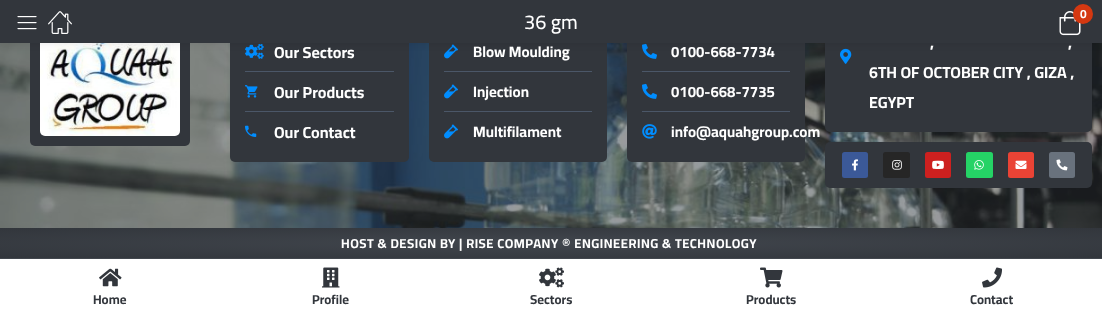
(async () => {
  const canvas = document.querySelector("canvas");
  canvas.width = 1102;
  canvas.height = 314;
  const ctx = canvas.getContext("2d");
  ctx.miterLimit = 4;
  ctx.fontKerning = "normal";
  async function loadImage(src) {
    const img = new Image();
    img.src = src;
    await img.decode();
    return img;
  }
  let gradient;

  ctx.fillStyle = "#41464d";
  ctx.fillRect(0, 0, 1102, 314);
  ctx.fillStyle = "#32363c";
  ctx.fillRect(0, 43, 1102, 185);
  ctx.drawImage(await loadImage("img/4.png"), 0, 43, 1102, 185);
  ctx.beginPath();
  ctx.roundRect(30, -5, 160, 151, 5);
  ctx.fill();
  ctx.drawImage(await loadImage("img/5.png"), 40, 43, 140, 93);
  ctx.beginPath();
  ctx.roundRect(230, -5, 179, 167, 5);
  ctx.fill();
  ctx.drawImage(await loadImage("img/6.png"), 245, 43, 19, 16);
  ctx.beginPath();
  ctx.roundRect(429, -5, 178, 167, 5);
  ctx.fill();
  ctx.drawImage(await loadImage("img/9.png"), 444, 44, 15, 15);
  ctx.beginPath();
  ctx.roundRect(627, -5, 178, 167, 5);
  ctx.fill();
  ctx.drawImage(await loadImage("img/10.png"), 642, 43, 15, 16);
  ctx.beginPath();
  ctx.roundRect(825, -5, 267, 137, 5);
  ctx.fill();
  ctx.drawImage(await loadImage("img/12.png"), 840, 48, 12, 16);
  ctx.fillStyle = "rgba(0, 0, 0, 0.1)";
  ctx.filter = "blur(4px)";
  ctx.beginPath();
  ctx.rect(0, 0, 1102, 43);
  ctx.fill();
  ctx.filter = "none";
  ctx.fillStyle = "#32363c";
  ctx.fillRect(0, 0, 1102, 43);
  ctx.drawImage(await loadImage("img/1.png"), 17, 16, 20, 14);
  ctx.drawImage(await loadImage("img/2.png"), 48, 11, 24, 23);
  ctx.drawImage(await loadImage("img/3.png"), 1059, 11, 22, 25);
  ctx.fillStyle = "#d43811";
  ctx.beginPath();
  ctx.arc(1083, 14, 10, 0, Math.PI * 2);
  ctx.fill();
  ctx.fillStyle = "#4b5768";
  ctx.fillRect(245, 71, 149, 1);
  ctx.drawImage(await loadImage("img/7.png"), 245, 85, 13, 13);
  ctx.fillRect(245, 111, 149, 1);
  ctx.drawImage(await loadImage("img/8.png"), 245, 125, 12, 12);
  ctx.fillRect(444, 71, 148, 1);
  ctx.drawImage(await loadImage("img/9.png"), 444, 84, 15, 15);
  ctx.fillRect(444, 111, 148, 1);
  ctx.drawImage(await loadImage("img/9.png"), 444, 124, 15, 15);
  ctx.fillRect(642, 71, 148, 1);
  ctx.drawImage(await loadImage("img/10.png"), 642, 83, 15, 16);
  ctx.fillRect(642, 111, 148, 1);
  ctx.drawImage(await loadImage("img/11.png"), 642, 124, 15, 15);
  ctx.fillStyle = "#32363c";
  ctx.beginPath();
  ctx.roundRect(825, 142, 267, 46, 5);
  ctx.fill();
  ctx.fillStyle = "#3b5998";
  ctx.beginPath();
  ctx.roundRect(842, 152, 26, 26, 2.5);
  ctx.fill();
  ctx.drawImage(await loadImage("img/13.png"), 852, 159, 6, 12);
  ctx.fillStyle = "#262626";
  ctx.beginPath();
  ctx.roundRect(883, 152, 27, 26, 2.5);
  ctx.fill();
  ctx.drawImage(await loadImage("img/14.png"), 892, 160, 10, 10);
  ctx.fillStyle = "#cd201f";
  ctx.beginPath();
  ctx.roundRect(925, 152, 26, 26, 2.5);
  ctx.fill();
  ctx.drawImage(await loadImage("img/15.png"), 932, 160, 12, 9);
  ctx.fillStyle = "#25d366";
  ctx.beginPath();
  ctx.roundRect(966, 152, 27, 26, 2.5);
  ctx.fill();
  ctx.drawImage(await loadImage("img/16.png"), 974, 160, 10, 10);
  ctx.fillStyle = "#ea4335";
  ctx.beginPath();
  ctx.roundRect(1008, 152, 26, 26, 2.5);
  ctx.fill();
  ctx.drawImage(await loadImage("img/17.png"), 1015, 160, 12, 9);
  ctx.fillStyle = "#69727d";
  ctx.beginPath();
  ctx.roundRect(1049, 152, 26, 26, 2.5);
  ctx.fill();
  ctx.drawImage(await loadImage("img/18.png"), 1056, 159, 12, 12);
  gradient = ctx.createRadialGradient(551, 9014.14, 0, 551, 9014.14, 779);
  gradient.addColorStop(0, "#41464d");
  gradient.addColorStop(1, "#32363c");
  ctx.fillStyle = gradient;
  ctx.beginPath();
  ctx.rect(0, 228, 1102, 30);
  ctx.save();
  ctx.clip();
  ctx.scale(1, 21 / 779);
  ctx.fillRect(0, 0, 1102, 11648);
  ctx.restore();
  ctx.fillStyle = "#ffffff";
  ctx.fillRect(0, 259, 1102, 55);
  ctx.drawImage(await loadImage("img/19.png"), 99, 268, 23, 19);
  ctx.drawImage(await loadImage("img/20.png"), 322, 267, 18, 21);
  ctx.drawImage(await loadImage("img/21.png"), 539, 267, 25, 21);
  ctx.drawImage(await loadImage("img/22.png"), 760, 267, 23, 21);
  ctx.drawImage(await loadImage("img/23.png"), 982, 267, 20, 21);
  ctx.font = "500 20px Cairo";
  ctx.fillText("36 gm", 524, 29);
  ctx.font = "bold 12px Cairo";
  ctx.fillText("0", 1080, 18);
  ctx.font = "bold 16px Cairo";
  for (const [text, x, y] of [
    ["Our Sectors", 274, 58],
    ["Our Products", 274, 98],
    ["Our Contact", 274, 138],
  ]) {
    ctx.fillText(text, x, y);
  }
  ctx.font = "bold 15px Cairo";
  for (const [text, x, y] of [
    ["Blow Moulding", 473, 57],
    ["Injection", 473, 97],
    ["Multifilament", 473, 137],
    ["0100-668-7734", 671, 57],
    ["0100-668-7735", 671, 97],
    ["info@aquahgroup.com", 671, 137],
  ]) {
    ctx.fillText(text, x, y);
  }
  ctx.font = "bold 16px Cairo";
  for (const [text, x, y] of [
    [",", 930, 48],
    [",", 1068, 48],
    ["6TH OF OCTOBER CITY , GIZA ,", 869, 78],
    ["EGYPT", 869, 108],
  ]) {
    ctx.fillText(text, x, y);
  }
  ctx.letterSpacing = "0.5px";
  ctx.font = "bold 13px Cairo";
  ctx.fillText("HOST & DESIGN BY | RISE COMPANY ® ENGINEERING & TECHNOLOGY", 341, 248);
  ctx.letterSpacing = "0px";
  ctx.fillStyle = "#32363c";
  for (const [text, x, y] of [
    ["Home", 93, 304],
    ["Profile", 312, 304],
    ["Sectors", 530, 304],
    ["Products", 746, 304],
    ["Contact", 970, 304],
  ]) {
    ctx.fillText(text, x, y);
  }
})();
